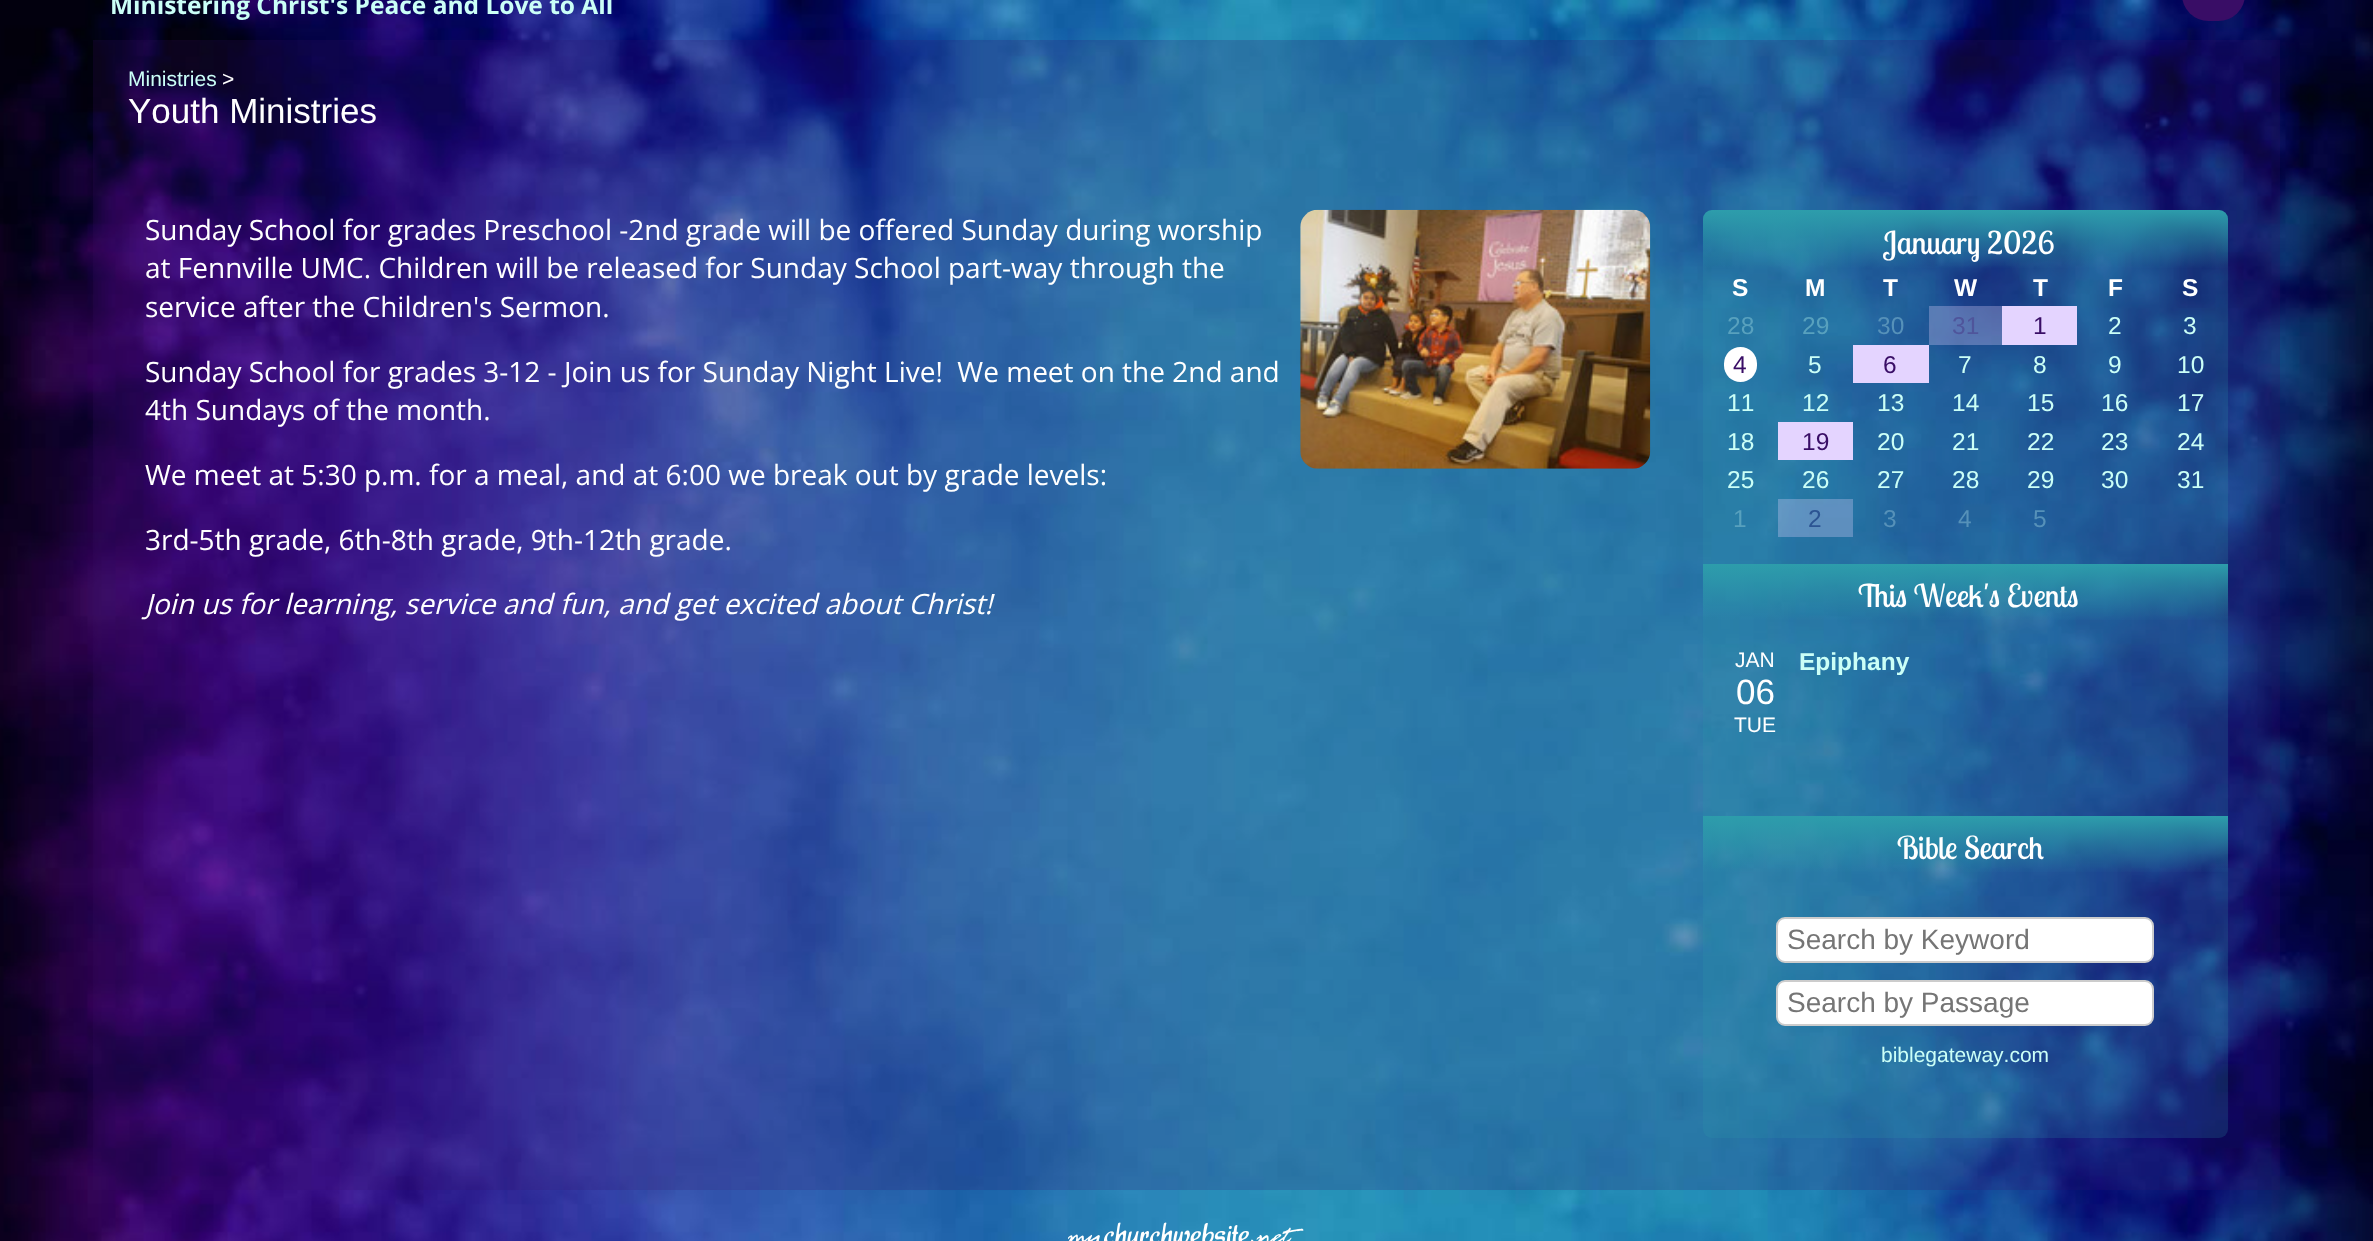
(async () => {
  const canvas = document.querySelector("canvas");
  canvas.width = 2373;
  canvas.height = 1241;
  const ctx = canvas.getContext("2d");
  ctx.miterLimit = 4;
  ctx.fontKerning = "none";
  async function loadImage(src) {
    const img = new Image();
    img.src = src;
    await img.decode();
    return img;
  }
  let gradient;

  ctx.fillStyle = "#ffffff";
  ctx.fillRect(0, 0, 2373, 1241);
  ctx.drawImage(await loadImage("img/1.png"), 0, 0, 2373, 1241);
  ctx.fillStyle = "#390d66";
  ctx.beginPath();
  ctx.roundRect(2182, -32, 63, 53, 31.5);
  ctx.fill();
  ctx.fillStyle = "rgba(57, 13, 102, 0.2)";
  ctx.fillRect(93, 40, 2187, 1150);
  ctx.drawImage(await loadImage("img/2.png"), 1300, 209, 351, 260);
  ctx.fillStyle = "rgba(45, 157, 171, 0.2)";
  ctx.beginPath();
  ctx.roundRect(1703, 210, 525, 928, 9);
  ctx.fill();
  gradient = ctx.createLinearGradient(1965, 210, 1965, 268);
  gradient.addColorStop(0, "#2d9dab");
  gradient.addColorStop(1, "rgba(45, 157, 171, 0.01)");
  ctx.fillStyle = gradient;
  ctx.beginPath();
  ctx.roundRect(1703, 210, 525, 58, [9, 9, 0, 0]);
  ctx.fill();
  ctx.fillStyle = "rgba(228, 212, 255, 0.3)";
  ctx.fillRect(1929, 306, 73, 39);
  ctx.fillStyle = "#e4d4ff";
  ctx.fillRect(2002, 306, 75, 39);
  ctx.fillStyle = "#ffffff";
  ctx.beginPath();
  ctx.roundRect(1724, 347, 33, 35, 16.5);
  ctx.fill();
  for (const [x, y, w, h, color] of [
    [1853, 345, 76, 38, "#e4d4ff"],
    [1778, 422, 75, 38, "#e4d4ff"],
    [1778, 499, 75, 38, "rgba(228, 212, 255, 0.3)"],
  ]) {
    ctx.fillStyle = color;
    ctx.fillRect(x, y, w, h);
  }
  gradient = ctx.createLinearGradient(1965, 564, 1965, 621);
  gradient.addColorStop(0, "#2d9dab");
  gradient.addColorStop(1, "rgba(45, 157, 171, 0.01)");
  ctx.fillStyle = gradient;
  ctx.fillRect(1703, 564, 525, 56);
  gradient = ctx.createLinearGradient(1965, 816, 1965, 873);
  gradient.addColorStop(0, "#2d9dab");
  gradient.addColorStop(1, "rgba(45, 157, 171, 0.01)");
  ctx.fillStyle = gradient;
  ctx.fillRect(1703, 816, 525, 56);
  ctx.fillStyle = "#ffffff";
  ctx.beginPath();
  ctx.roundRect(1777, 918, 376, 44, 8);
  ctx.fill();
  ctx.strokeStyle = "#cccccc";
  ctx.lineWidth = 2;
  ctx.stroke();
  ctx.beginPath();
  ctx.roundRect(1777, 981, 376, 44, 8);
  ctx.fill();
  ctx.stroke();
  ctx.drawImage(await loadImage("img/3.png"), 1068, 1222, 236, 19);
  ctx.font = "bold 24.5px Open Sans";
  ctx.fillStyle = "#cbfff7";
  ctx.fillText("Ministering Christ's Peace and Love to All", 110, 14);
  ctx.font = "21px Liberation Sans";
  ctx.fillText("Ministries", 128, 86);
  ctx.fillStyle = "#ffffff";
  ctx.fillText(">", 222, 86);
  ctx.font = "35px Liberation Sans";
  ctx.fillText("Youth Ministries", 128, 123);
  ctx.font = "28px Open Sans";
  for (const [text, x, y] of [
    ["Sunday School for grades Preschool -2nd grade will be offered Sunday during worship", 145, 240],
    ["at Fennville UMC. Children will be released for Sunday School part-way through the", 145, 278],
    ["service after the Children's Sermon.", 145, 317],
    ["Sunday School for grades 3-12 - Join us for Sunday Night Live!  We meet on the 2nd and", 145, 382],
    ["4th Sundays of the month.", 145, 420],
    ["We meet at 5:30 p.m. for a meal, and at 6:00 we break out by grade levels:", 145, 485],
    ["3rd-5th grade, 6th-8th grade, 9th-12th grade.", 145, 550],
  ]) {
    ctx.fillText(text, x, y);
  }
  ctx.font = "italic 28px Open Sans";
  ctx.fillText("Join us for learning, service and fun, and get excited about Christ!", 145, 614);
  ctx.font = "31.5px Lobster Two";
  ctx.fillText("January 2026", 1883, 254);
  ctx.font = "bold 24.5px Liberation Sans";
  for (const [text, x, y] of [
    ["S", 1732, 296],
    ["M", 1805, 296],
    ["T", 1883, 296],
    ["W", 1954, 296],
    ["T", 2033, 296],
    ["F", 2108, 296],
    ["S", 2182, 296],
  ]) {
    ctx.fillText(text, x, y);
  }
  ctx.font = "24.5px Liberation Sans";
  ctx.fillStyle = "#58a1be";
  ctx.fillText("28", 1727, 334);
  ctx.fillText("29", 1802, 334);
  ctx.fillStyle = "#5691b9";
  ctx.fillText("30", 1877, 334);
  ctx.fillStyle = "#4f559b";
  ctx.fillText("31", 1952, 334);
  ctx.fillStyle = "#390d66";
  ctx.fillText("1", 2033, 334);
  ctx.fillStyle = "#cbfff7";
  ctx.fillText("2", 2108, 334);
  ctx.fillText("3", 2183, 334);
  ctx.fillStyle = "#390d66";
  ctx.fillText("4", 1733, 373);
  ctx.fillStyle = "#cbfff7";
  ctx.fillText("5", 1808, 373);
  ctx.fillStyle = "#390d66";
  ctx.fillText("6", 1883, 373);
  ctx.fillStyle = "#cbfff7";
  for (const [text, x, y] of [
    ["7", 1958, 373],
    ["8", 2033, 373],
    ["9", 2108, 373],
    ["10", 2177, 373],
    ["11", 1727, 411],
    ["12", 1802, 411],
    ["13", 1877, 411],
    ["14", 1952, 411],
    ["15", 2027, 411],
    ["16", 2101, 411],
    ["17", 2177, 411],
    ["18", 1727, 450],
  ]) {
    ctx.fillText(text, x, y);
  }
  ctx.fillStyle = "#390d66";
  ctx.fillText("19", 1802, 450);
  ctx.fillStyle = "#cbfff7";
  for (const [text, x, y] of [
    ["20", 1877, 450],
    ["21", 1952, 450],
    ["22", 2027, 450],
    ["23", 2101, 450],
    ["24", 2177, 450],
    ["25", 1727, 488],
    ["26", 1802, 488],
    ["27", 1877, 488],
    ["28", 1952, 488],
    ["29", 2027, 488],
    ["30", 2101, 488],
    ["31", 2177, 488],
  ]) {
    ctx.fillText(text, x, y);
  }
  ctx.fillStyle = "#58a1be";
  ctx.fillText("1", 1733, 527);
  ctx.fillStyle = "#2c5492";
  ctx.fillText("2", 1808, 527);
  ctx.fillStyle = "#5691b9";
  for (const [text, x, y] of [
    ["3", 1883, 527],
    ["4", 1958, 527],
    ["5", 2033, 527],
  ]) {
    ctx.fillText(text, x, y);
  }
  ctx.font = "31.5px Lobster Two";
  ctx.fillStyle = "#ffffff";
  ctx.fillText("This Week's Events", 1858, 607);
  ctx.font = "21px Liberation Sans";
  ctx.fillText("JAN", 1735, 667);
  ctx.font = "35px Liberation Sans";
  ctx.fillText("06", 1736, 704);
  ctx.font = "21px Liberation Sans";
  ctx.fillText("TUE", 1734, 732);
  ctx.font = "bold 24.5px Liberation Sans";
  ctx.fillStyle = "#cbfff7";
  ctx.fillText("Epiphany", 1799, 670);
  ctx.font = "31.5px Lobster Two";
  ctx.fillStyle = "#ffffff";
  ctx.fillText("Bible Search", 1897, 859);
  ctx.font = "28px Liberation Sans";
  ctx.fillStyle = "#757575";
  ctx.fillText("Search by Keyword", 1787, 949);
  ctx.fillText("Search by Passage", 1787, 1012);
  ctx.font = "21px Liberation Sans";
  ctx.fillStyle = "#cbfff7";
  ctx.fillText("biblegateway.com", 1881, 1062);
})();
